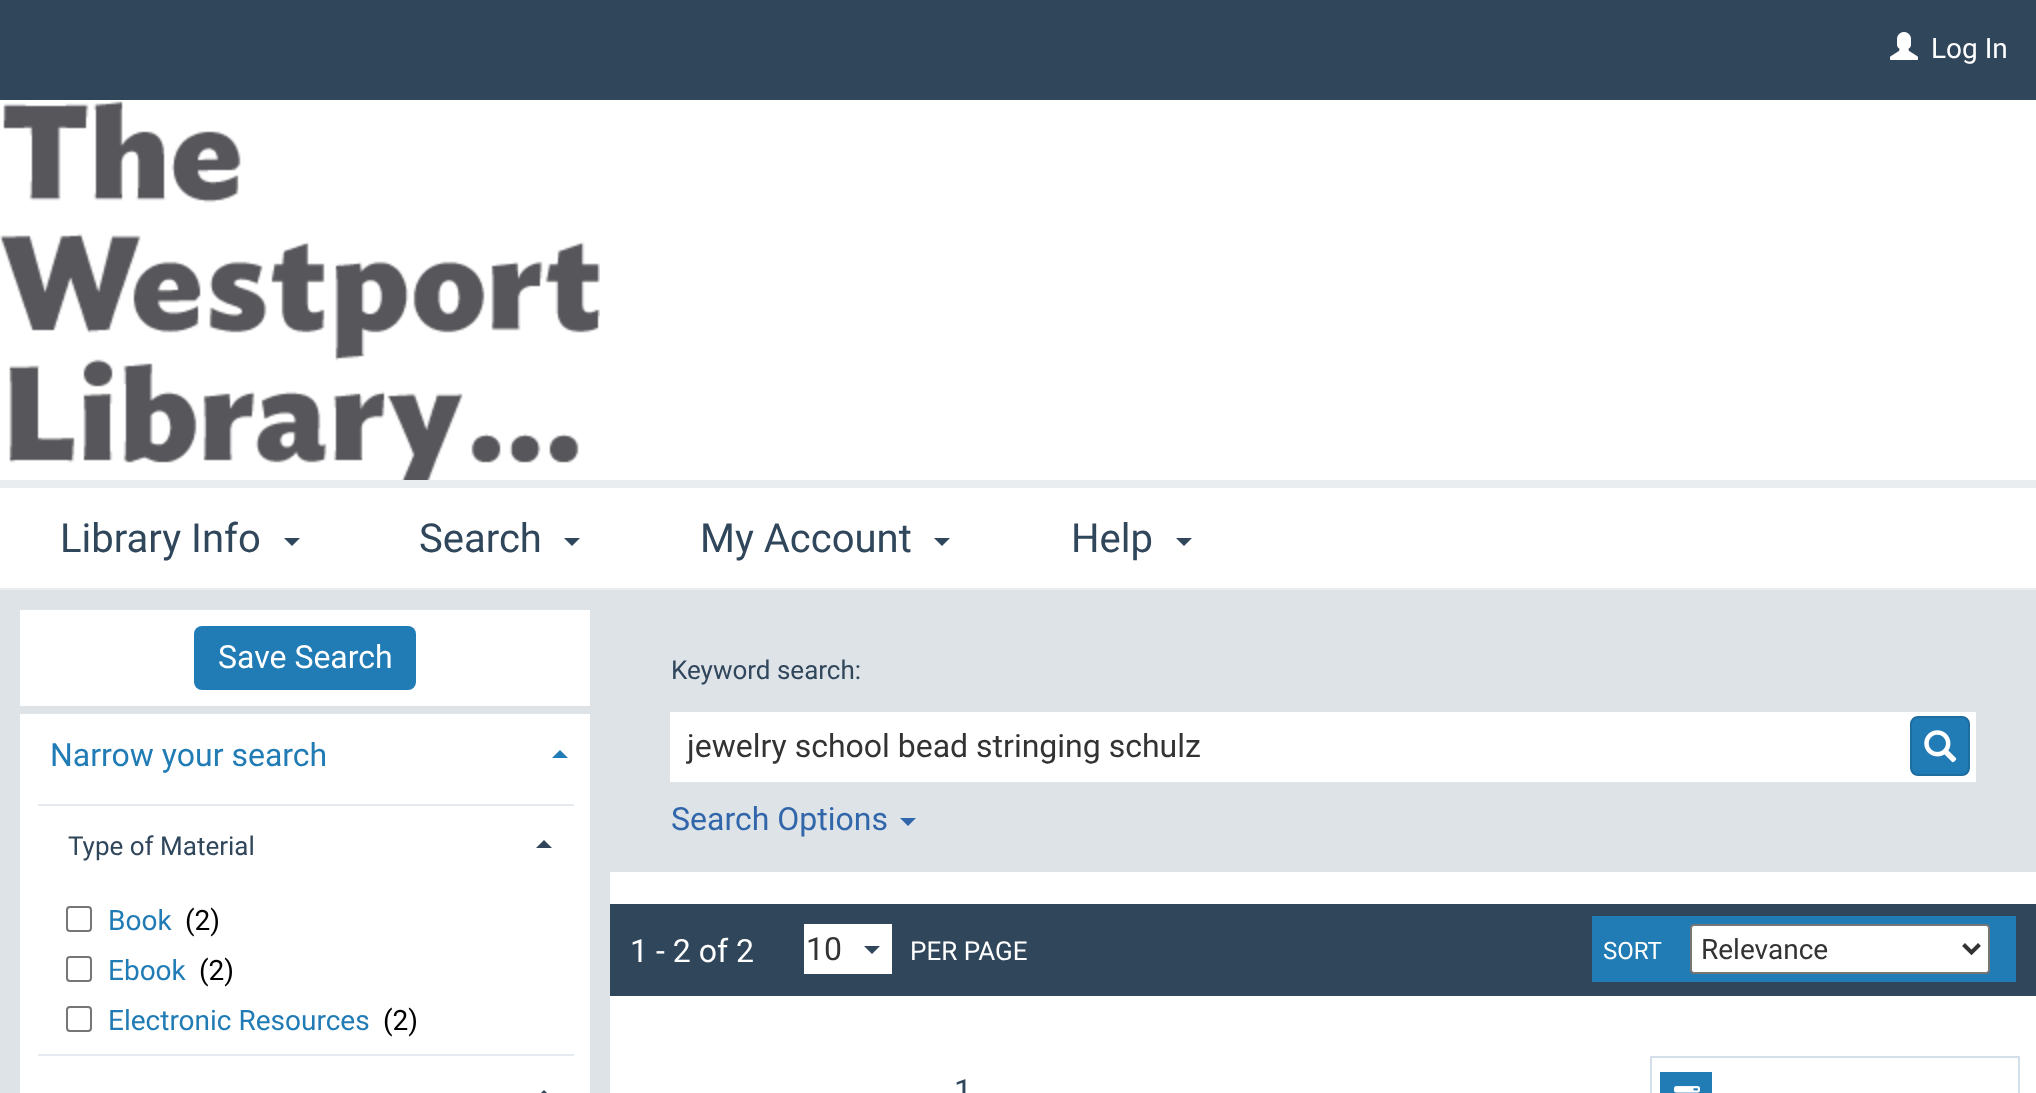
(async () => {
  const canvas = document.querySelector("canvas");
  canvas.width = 2036;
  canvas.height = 1093;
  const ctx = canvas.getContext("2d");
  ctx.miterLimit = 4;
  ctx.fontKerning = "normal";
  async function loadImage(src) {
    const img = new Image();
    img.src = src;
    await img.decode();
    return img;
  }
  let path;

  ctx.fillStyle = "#30465b";
  ctx.fillRect(0, 0, 2036, 1093);
  ctx.fillStyle = "#eaedf0";
  ctx.fillRect(0, 588, 2036, 2);
  ctx.drawImage(await loadImage("img/1.png"), 1890, 32, 28, 28);
  ctx.fillStyle = "#ffffff";
  ctx.fillRect(0, 100, 2036, 380);
  ctx.drawImage(await loadImage("img/2.png"), 0, 101, 600, 379);
  ctx.fillRect(0, 488, 2036, 100);
  ctx.fillStyle = "#eaedf0";
  ctx.fillRect(0, 480, 2036, 8);
  ctx.fillStyle = "#30465b";
  path = new Path2D("M284 538H300L292 546Z");
  ctx.fill(path);
  path = new Path2D("M564 538H580L572 546Z");
  ctx.fill(path);
  path = new Path2D("M934 538H950L942 546Z");
  ctx.fill(path);
  path = new Path2D("M1176 538H1192L1184 546Z");
  ctx.fill(path);
  ctx.fillStyle = "#dee3e8";
  ctx.fillRect(0, 590, 610, 503);
  ctx.fillStyle = "#ffffff";
  ctx.fillRect(20, 610, 570, 96);
  ctx.fillStyle = "#217cb5";
  ctx.beginPath();
  ctx.roundRect(194, 626, 222, 64, 8);
  ctx.fill();
  ctx.fillStyle = "#ffffff";
  ctx.fillRect(20, 714, 570, 379);
  ctx.fillStyle = "#217cb5";
  path = new Path2D("M568 758H552L560 750Z");
  ctx.fill(path);
  ctx.fillStyle = "#e5ebf1";
  ctx.fillRect(38, 804, 536, 2);
  ctx.fillStyle = "#30465b";
  path = new Path2D("M552 848H536L544 840Z");
  ctx.fill(path);
  ctx.beginPath();
  ctx.roundRect(67, 907, 24, 24, 3);
  ctx.strokeStyle = "#767676";
  ctx.lineWidth = 2;
  ctx.stroke();
  ctx.beginPath();
  ctx.roundRect(67, 957, 24, 24, 3);
  ctx.stroke();
  ctx.beginPath();
  ctx.roundRect(67, 1007, 24, 24, 3);
  ctx.stroke();
  ctx.fillStyle = "#e5ebf1";
  ctx.fillRect(38, 1054, 536, 2);
  ctx.fillStyle = "#30465b";
  path = new Path2D("M552 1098H536L544 1090Z");
  ctx.fill(path);
  for (const [x, y, w, h, color] of [
    [610, 872, 1426, 221, "#ffffff"],
    [610, 590, 1426, 282, "#dee3e8"],
    [670, 712, 1306, 70, "#ffffff"],
  ]) {
    ctx.fillStyle = color;
    ctx.fillRect(x, y, w, h);
  }
  ctx.fillStyle = "#217cb5";
  ctx.beginPath();
  ctx.roundRect(1911, 717, 58, 58, 7);
  ctx.fill();
  ctx.strokeStyle = "#1d6d9f";
  ctx.stroke();
  ctx.drawImage(await loadImage("img/3.png"), 1924, 730, 33, 33);
  ctx.fillStyle = "#3166aa";
  path = new Path2D("M900 818H916L908 826Z");
  ctx.fill(path);
  ctx.fillStyle = "#30465b";
  ctx.fillRect(610, 904, 1426, 92);
  ctx.fillStyle = "#ffffff";
  ctx.fillRect(804, 924, 88, 50);
  ctx.fillStyle = "#30465b";
  path = new Path2D("M864 946H880L872 954Z");
  ctx.fill(path);
  ctx.fillStyle = "#217cb5";
  ctx.fillRect(1592, 916, 424, 66);
  ctx.fillStyle = "#ffffff";
  ctx.beginPath();
  ctx.roundRect(1691, 925, 298, 48, 3);
  ctx.fill();
  ctx.strokeStyle = "#767676";
  ctx.stroke();
  path = new Path2D("M1963.5 944.5L1971.5 952.5L1979.5 944.5");
  ctx.strokeStyle = "#333333";
  ctx.lineWidth = 4;
  ctx.stroke(path);
  for (const [x, y, w, h, color] of [
    [1650, 1056, 370, 2, "#d4dfe9"],
    [2018, 1056, 2, 37, "#d4dfe9"],
    [1650, 1056, 2, 37, "#d4dfe9"],
    [1660, 1072, 52, 21, "#217cb5"],
  ]) {
    ctx.fillStyle = color;
    ctx.fillRect(x, y, w, h);
  }
  ctx.drawImage(await loadImage("img/4.png"), 1674, 1086, 26, 7);
  ctx.font = "28px Roboto";
  ctx.fillStyle = "#ffffff";
  ctx.fillText("Log In", 1931, 58);
  ctx.font = "40px Roboto";
  ctx.fillStyle = "#30465b";
  for (const [text, x, y] of [
    ["Library Info", 60, 552],
    ["Search", 419, 552],
    ["My Account", 700, 552],
    ["Help", 1071, 552],
  ]) {
    ctx.fillText(text, x, y);
  }
  ctx.font = "32px Roboto";
  ctx.fillStyle = "#ffffff";
  ctx.fillText("Save Search", 218, 668);
  ctx.fillStyle = "#217cb5";
  ctx.fillText("Narrow your search", 50, 766);
  ctx.font = "26px Roboto";
  ctx.fillStyle = "#30465b";
  ctx.fillText("Type of Material", 68, 855);
  ctx.font = "28px Roboto";
  ctx.fillStyle = "#217cb5";
  ctx.fillText("Book", 108, 930);
  ctx.fillStyle = "#000000";
  ctx.fillText("(2)", 185, 930);
  ctx.fillStyle = "#217cb5";
  ctx.fillText("Ebook", 108, 980);
  ctx.fillStyle = "#000000";
  ctx.fillText("(2)", 199, 980);
  ctx.fillStyle = "#217cb5";
  ctx.fillText("Electronic Resources", 108, 1030);
  ctx.fillStyle = "#000000";
  ctx.fillText("(2)", 383, 1030);
  ctx.font = "26px Roboto";
  ctx.fillStyle = "#30465b";
  ctx.fillText("Keyword search:", 671, 679);
  ctx.save();
  ctx.beginPath();
  ctx.rect(686, 726, 1164, 40);
  ctx.clip();
  ctx.font = "32px Roboto";
  ctx.fillStyle = "#333333";
  ctx.fillText("jewelry school bead stringing schulz", 687, 757);
  ctx.restore();
  ctx.font = "32px Roboto";
  ctx.fillStyle = "#3166aa";
  ctx.fillText("Search Options", 671, 830);
  ctx.fillStyle = "#ffffff";
  ctx.fillText("1 - 2 of 2", 630, 962);
  ctx.fillStyle = "#333333";
  ctx.fillText("10", 806, 960);
  ctx.font = "26px Roboto";
  ctx.fillStyle = "#ffffff";
  ctx.fillText("PER PAGE", 910, 960);
  ctx.font = "24px Roboto";
  ctx.fillText("SORT", 1603, 959);
  ctx.font = "28px Roboto";
  ctx.fillStyle = "#333333";
  ctx.fillText("Relevance", 1701, 959);
  ctx.font = "32px Roboto";
  ctx.fillStyle = "#30465b";
  ctx.fillText("1", 954, 1102);
})();
